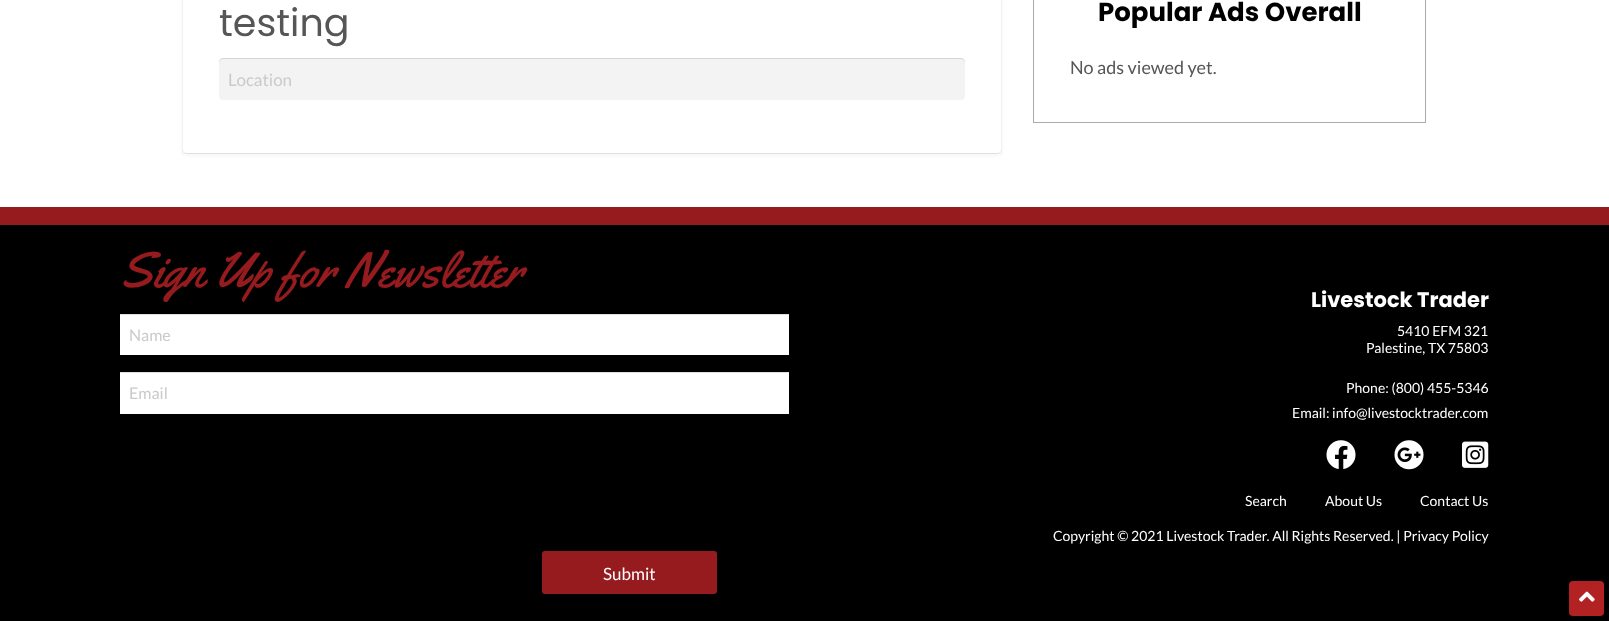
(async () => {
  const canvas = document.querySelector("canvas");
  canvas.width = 1609;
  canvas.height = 621;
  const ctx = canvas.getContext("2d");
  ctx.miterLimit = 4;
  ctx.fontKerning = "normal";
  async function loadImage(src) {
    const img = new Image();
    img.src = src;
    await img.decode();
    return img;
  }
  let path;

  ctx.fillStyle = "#ffffff";
  ctx.fillRect(0, 0, 1609, 621);
  ctx.fillStyle = "rgba(0, 0, 0, 0.05)";
  ctx.filter = "blur(2.5px)";
  ctx.beginPath();
  ctx.roundRect(183, -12, 818, 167, 4);
  ctx.fill();
  ctx.filter = "none";
  ctx.filter = "blur(0.5px)";
  ctx.beginPath();
  ctx.roundRect(183, -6, 818, 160, 4);
  ctx.fill();
  ctx.filter = "none";
  ctx.strokeStyle = "rgba(0, 0, 0, 0.03)";
  ctx.strokeRect(182.5, -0.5, 819, 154);
  ctx.fillStyle = "#ffffff";
  ctx.beginPath();
  ctx.roundRect(183, -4, 818, 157, 4);
  ctx.fill();
  ctx.fillStyle = "#f3f3f4";
  ctx.beginPath();
  ctx.roundRect(219, 58, 746, 42, 4);
  ctx.fill();
  ctx.fillStyle = "rgba(0, 0, 0, 0.12)";
  path = new Path2D("M223 59H961C963 59 965 61 965 63V62C965 60 963 58 961 58H223C221 58 219 60 219 62V63C219 61 221 59 223 59Z");
  ctx.fill(path);
  ctx.strokeStyle = "#ababab";
  ctx.strokeRect(1033.5, -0.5, 392, 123);
  for (const [x, y, w, h, color] of [
    [0, 225, 1609, 396, "#000000"],
    [0, 207, 1609, 18, "#951b1e"],
    [120, 315, 669, 40, "#ffffff"],
    [120, 314, 669, 1, "#dfdfdf"],
    [120, 373, 669, 41, "#ffffff"],
    [120, 372, 669, 1, "#dfdfdf"],
  ]) {
    ctx.fillStyle = color;
    ctx.fillRect(x, y, w, h);
  }
  ctx.fillStyle = "#951b1e";
  ctx.beginPath();
  ctx.roundRect(542, 551, 175, 43, 3);
  ctx.fill();
  ctx.drawImage(await loadImage("img/1.png"), 1326, 440, 30, 29);
  ctx.drawImage(await loadImage("img/2.png"), 1394, 440, 30, 30);
  ctx.drawImage(await loadImage("img/3.png"), 1462, 441, 27, 27);
  ctx.fillStyle = "#b22222";
  ctx.beginPath();
  ctx.roundRect(1569, 581, 35, 35, 4);
  ctx.fill();
  ctx.drawImage(await loadImage("img/4.png"), 1579, 591, 16, 11);
  ctx.font = "38px Poppins";
  ctx.fillStyle = "#565656";
  ctx.fillText("testing", 219, 36);
  ctx.font = "17px Lato";
  ctx.fillStyle = "#cacaca";
  ctx.fillText("Location", 228, 86);
  ctx.font = "bold 26px Poppins";
  ctx.fillStyle = "#000000";
  ctx.fillText("Popular Ads Overall", 1098, 21);
  ctx.font = "18px Lato";
  ctx.fillStyle = "#565656";
  ctx.fillText("No ads viewed yet.", 1070, 74);
  ctx.font = "50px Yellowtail";
  ctx.fillStyle = "#951b1e";
  ctx.fillText("Sign Up for Newsletter", 120, 287);
  ctx.font = "16px Lato";
  ctx.fillStyle = "#cacaca";
  ctx.fillText("Name", 129, 341);
  ctx.fillText("Email", 129, 399);
  ctx.font = "17px Lato";
  ctx.fillStyle = "#ffffff";
  ctx.fillText("Submit", 603, 580);
  ctx.font = "bold 21px Poppins";
  ctx.fillText("Livestock Trader", 1311, 307);
  ctx.font = "14px Lato";
  for (const [text, x, y] of [
    ["5410 EFM 321", 1397, 336],
    ["Palestine, TX 75803", 1366, 353],
    ["Phone: (800) 455-5346", 1346, 393],
    ["Email: info@livestocktrader.com", 1292, 418],
    ["Search", 1245, 506],
    ["About Us", 1325, 506],
    ["Contact Us", 1420, 506],
    ["Copyright © 2021 Livestock Trader. All Rights Reserved. | Privacy Policy", 1053, 541],
  ]) {
    ctx.fillText(text, x, y);
  }
})();
